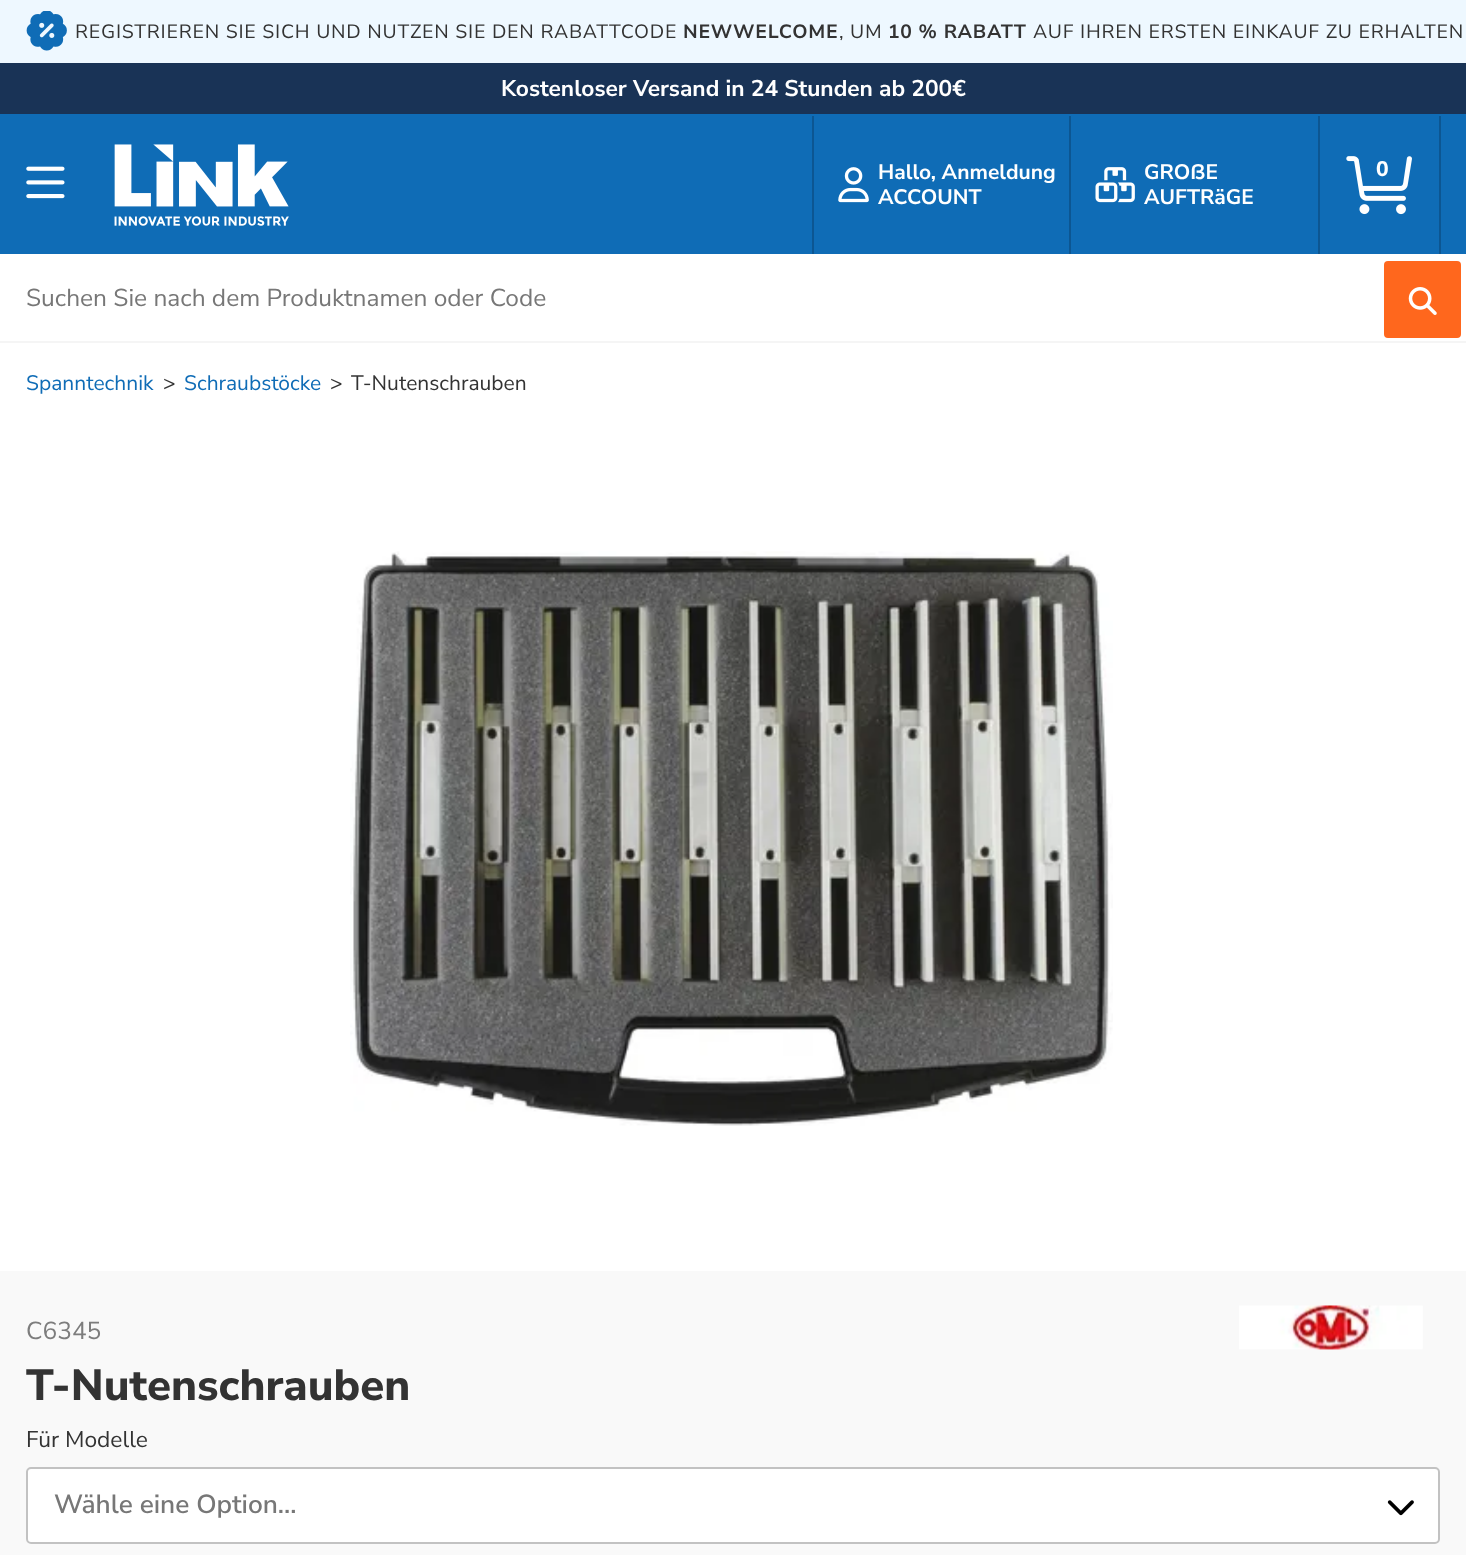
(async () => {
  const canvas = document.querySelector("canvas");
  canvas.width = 1466;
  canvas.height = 1555;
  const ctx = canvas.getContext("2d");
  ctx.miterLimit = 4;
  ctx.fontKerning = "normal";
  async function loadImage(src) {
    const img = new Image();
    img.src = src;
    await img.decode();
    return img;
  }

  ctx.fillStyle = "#ffffff";
  ctx.fillRect(0, 0, 1466, 1555);
  ctx.fillStyle = "#eef8ff";
  ctx.fillRect(0, 0, 1466, 63);
  ctx.drawImage(await loadImage("img/1.png"), 26, 11, 41, 40);
  ctx.fillStyle = "#193356";
  ctx.fillRect(0, 63, 1466, 51);
  ctx.fillStyle = "#0f6cb6";
  ctx.fillRect(0, 114, 1466, 140);
  ctx.drawImage(await loadImage("img/2.png"), 26, 166, 39, 33);
  ctx.drawImage(await loadImage("img/3.png"), 114, 144, 175, 82);
  ctx.fillStyle = "#0c5692";
  ctx.fillRect(812, 116, 2, 138);
  ctx.drawImage(await loadImage("img/4.png"), 838, 167, 31, 36);
  ctx.fillRect(1069, 116, 2, 138);
  ctx.drawImage(await loadImage("img/5.png"), 1095, 167, 40, 36);
  ctx.fillRect(1439, 116, 2, 138);
  ctx.fillRect(1318, 116, 2, 138);
  ctx.drawImage(await loadImage("img/6.png"), 1346, 156, 66, 59);
  ctx.fillStyle = "#f5f5f5";
  ctx.fillRect(0, 341, 1466, 2);
  ctx.fillStyle = "#ff671d";
  ctx.beginPath();
  ctx.roundRect(1384, 261, 77, 77, 4);
  ctx.fill();
  ctx.drawImage(await loadImage("img/7.png"), 1408, 287, 29, 28);
  ctx.drawImage(await loadImage("img/8.png"), 350, 551, 763, 575);
  ctx.fillStyle = "#f9f9f9";
  ctx.fillRect(0, 1271, 1466, 284);
  ctx.drawImage(await loadImage("img/9.png"), 1239, 1305, 184, 45);
  ctx.fillStyle = "#ffffff";
  ctx.beginPath();
  ctx.roundRect(26, 1467, 1414, 77, 5);
  ctx.fill();
  ctx.drawImage(await loadImage("img/10.png"), 1387, 1500, 27, 16);
  ctx.beginPath();
  ctx.roundRect(27, 1468, 1412, 75, 4);
  ctx.strokeStyle = "#c2c2c2";
  ctx.lineWidth = 2;
  ctx.stroke();
  ctx.letterSpacing = "0.73px";
  ctx.font = "19.25px 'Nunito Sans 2'";
  ctx.fillStyle = "#333333";
  ctx.fillText("REGISTRIEREN SIE SICH UND NUTZEN SIE DEN RABATTCODE", 75, 38);
  ctx.font = "bold 19.25px Nunito Sans";
  ctx.fillText("NEWWELCOME", 683, 38);
  ctx.font = "19.25px 'Nunito Sans 2'";
  ctx.fillText(", UM", 839, 38);
  ctx.font = "bold 19.25px Nunito Sans";
  ctx.fillText("10 % RABATT", 888, 38);
  ctx.font = "19.25px 'Nunito Sans 2'";
  ctx.fillText("AUF IHREN ERSTEN EINKAUF ZU ERHALTEN", 1033, 38);
  ctx.letterSpacing = "0px";
  ctx.font = "bold 22.75px 'Nunito Sans 2'";
  ctx.fillStyle = "#ffffff";
  ctx.fillText("Kostenloser Versand in 24 Stunden ab 200€", 501, 96);
  ctx.font = "bold 21px 'Nunito Sans 2'";
  for (const [text, x, y] of [
    ["Hallo, Anmeldung", 878, 179],
    ["ACCOUNT", 878, 204],
    ["GROßE", 1144, 179],
    ["AUFTRäGE", 1144, 204],
  ]) {
    ctx.fillText(text, x, y);
  }
  ctx.font = "800 21px Nunito Sans";
  ctx.fillText("0", 1376, 176);
  ctx.font = "24.5px Nunito Sans";
  ctx.fillStyle = "#777777";
  ctx.fillText("Suchen Sie nach dem Produktnamen oder Code", 26, 306);
  ctx.font = "21px Nunito Sans";
  ctx.fillStyle = "#0f6cb6";
  ctx.fillText("Spanntechnik", 26, 390);
  ctx.fillStyle = "#333333";
  ctx.fillText(">", 163, 390);
  ctx.fillStyle = "#0f6cb6";
  ctx.fillText("Schraubstöcke", 184, 390);
  ctx.fillStyle = "#333333";
  ctx.fillText(">", 330, 390);
  ctx.fillText("T-Nutenschrauben", 351, 390);
  ctx.font = "24.5px Nunito Sans";
  ctx.fillStyle = "#7d7d7d";
  ctx.fillText("C6345", 26, 1339);
  ctx.font = "800 43.75px Nunito Sans";
  ctx.fillStyle = "#333333";
  ctx.fillText("T-Nutenschrauben", 26, 1400);
  ctx.font = "22.75px Nunito Sans";
  ctx.fillText("Für Modelle", 26, 1447);
  ctx.font = "600 26.25px Nunito Sans";
  ctx.fillStyle = "#777777";
  ctx.fillText("Wähle eine Option...", 54, 1513);
})();
